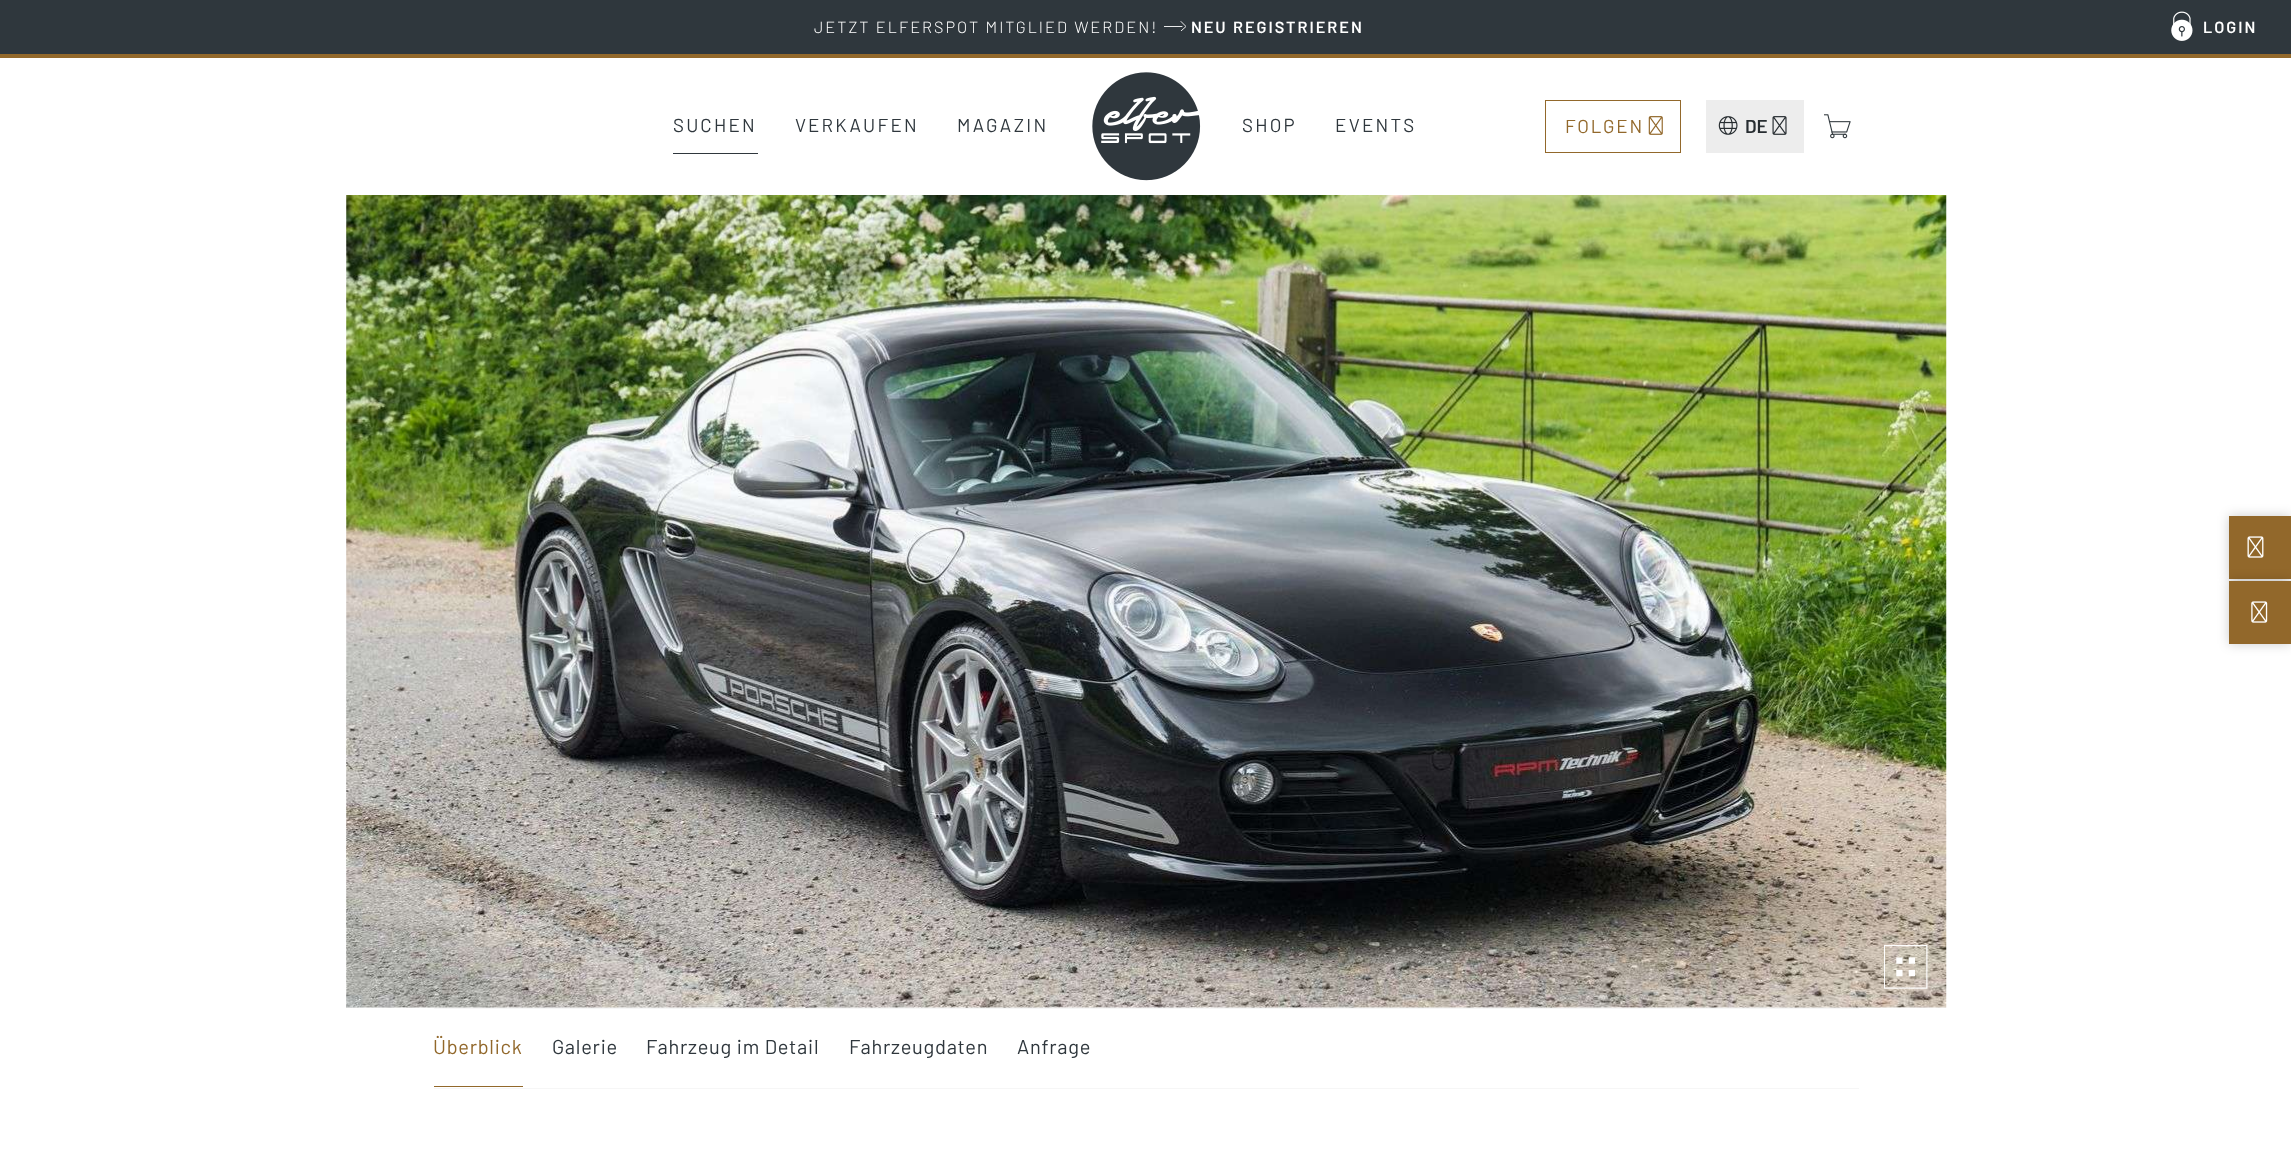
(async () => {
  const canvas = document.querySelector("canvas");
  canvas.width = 2291;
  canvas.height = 1161;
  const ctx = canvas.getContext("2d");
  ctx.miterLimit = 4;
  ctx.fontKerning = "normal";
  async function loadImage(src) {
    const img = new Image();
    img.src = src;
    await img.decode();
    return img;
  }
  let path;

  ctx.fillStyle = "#ffffff";
  ctx.fillRect(0, 0, 2291, 1161);
  ctx.fillStyle = "#2f373d";
  ctx.fillRect(0, 0, 2291, 54);
  ctx.fillStyle = "#92682b";
  ctx.fillRect(0, 54, 2291, 4);
  ctx.save();
  ctx.beginPath();
  ctx.rect(1164, 21, 22, 10);
  ctx.clip();
  path = new Path2D("M1181 21.5L1186 26.5L1181 31M1182 26.5H1164");
  ctx.strokeStyle = "#ffffff";
  ctx.lineWidth = 0.9;
  ctx.lineCap = "round";
  ctx.lineJoin = "round";
  ctx.stroke(path);
  ctx.restore();
  ctx.drawImage(await loadImage("img/1.png"), 2171, 11, 22, 30);
  ctx.fillStyle = "#2f373d";
  ctx.fillRect(673, 153, 85, 1);
  ctx.drawImage(await loadImage("img/2.png"), 1092, 72, 109, 109);
  ctx.strokeStyle = "#92682b";
  ctx.strokeRect(1545.5, 100.5, 135, 52);
  ctx.drawImage(await loadImage("img/3.png"), 1648, 116, 15, 19);
  ctx.fillStyle = "#ededed";
  ctx.fillRect(1706, 100, 98, 53);
  ctx.drawImage(await loadImage("img/4.png"), 1718, 116, 20, 19);
  ctx.drawImage(await loadImage("img/5.png"), 1772, 116, 15, 19);
  ctx.drawImage(await loadImage("img/6.png"), 1824, 114, 27, 25);
  ctx.fillStyle = "#f7f7f7";
  ctx.fillRect(346, 195, 1600, 813);
  ctx.drawImage(await loadImage("img/7.png"), 346, 195, 1601, 813);
  ctx.drawImage(await loadImage("img/8.png"), 1884, 945, 44, 44);
  ctx.fillStyle = "rgba(0, 0, 0, 0.2)";
  ctx.filter = "blur(6px)";
  ctx.beginPath();
  ctx.rect(2229, 516, 62, 63);
  ctx.fill();
  ctx.filter = "none";
  ctx.fillStyle = "#92682b";
  ctx.fillRect(2229, 516, 62, 63);
  ctx.drawImage(await loadImage("img/9.png"), 2247, 536, 17, 22);
  ctx.fillStyle = "rgba(0, 0, 0, 0.2)";
  ctx.filter = "blur(6px)";
  ctx.beginPath();
  ctx.rect(2229, 581, 62, 63);
  ctx.fill();
  ctx.filter = "none";
  ctx.fillStyle = "#92682b";
  ctx.fillRect(2229, 581, 62, 63);
  ctx.drawImage(await loadImage("img/10.png"), 2251, 601, 17, 22);
  for (const [x, y, w, h, color] of [
    [434, 1008, 1425, 1, "#f6f6f6"],
    [434, 1088, 1425, 1, "#f6f6f6"],
    [434, 1086, 89, 1, "#92682b"],
  ]) {
    ctx.fillStyle = color;
    ctx.fillRect(x, y, w, h);
  }
  ctx.letterSpacing = "2px";
  ctx.font = "300 16.25px Barlow";
  ctx.fillStyle = "#ffffff";
  ctx.fillText("JETZT ELFERSPOT MITGLIED WERDEN!", 814, 33);
  ctx.font = "600 16.25px Barlow";
  ctx.fillText("NEU REGISTRIEREN", 1191, 33);
  ctx.fillText("LOGIN", 2203, 33);
  ctx.letterSpacing = "2.25px";
  ctx.font = "18.75px Barlow";
  ctx.fillStyle = "#2f373d";
  for (const [text, x, y] of [
    ["SUCHEN", 673, 132],
    ["VERKAUFEN", 795, 132],
    ["MAGAZIN", 957, 132],
    ["SHOP", 1242, 132],
    ["EVENTS", 1335, 132],
  ]) {
    ctx.fillText(text, x, y);
  }
  ctx.letterSpacing = "1.75px";
  ctx.fillStyle = "#92682b";
  ctx.fillText("FOLGEN", 1565, 133);
  ctx.letterSpacing = "0px";
  ctx.font = "600 18.75px Barlow";
  ctx.fillStyle = "#272d31";
  ctx.fillText("DE", 1745, 133);
  ctx.letterSpacing = "0.75px";
  ctx.font = "20px Barlow";
  ctx.fillStyle = "#92682b";
  ctx.fillText("Überblick", 433, 1054);
  ctx.fillStyle = "#2f373d";
  for (const [text, x, y] of [
    ["Galerie", 552, 1054],
    ["Fahrzeug im Detail", 646, 1054],
    ["Fahrzeugdaten", 849, 1054],
    ["Anfrage", 1017, 1054],
  ]) {
    ctx.fillText(text, x, y);
  }
})();
